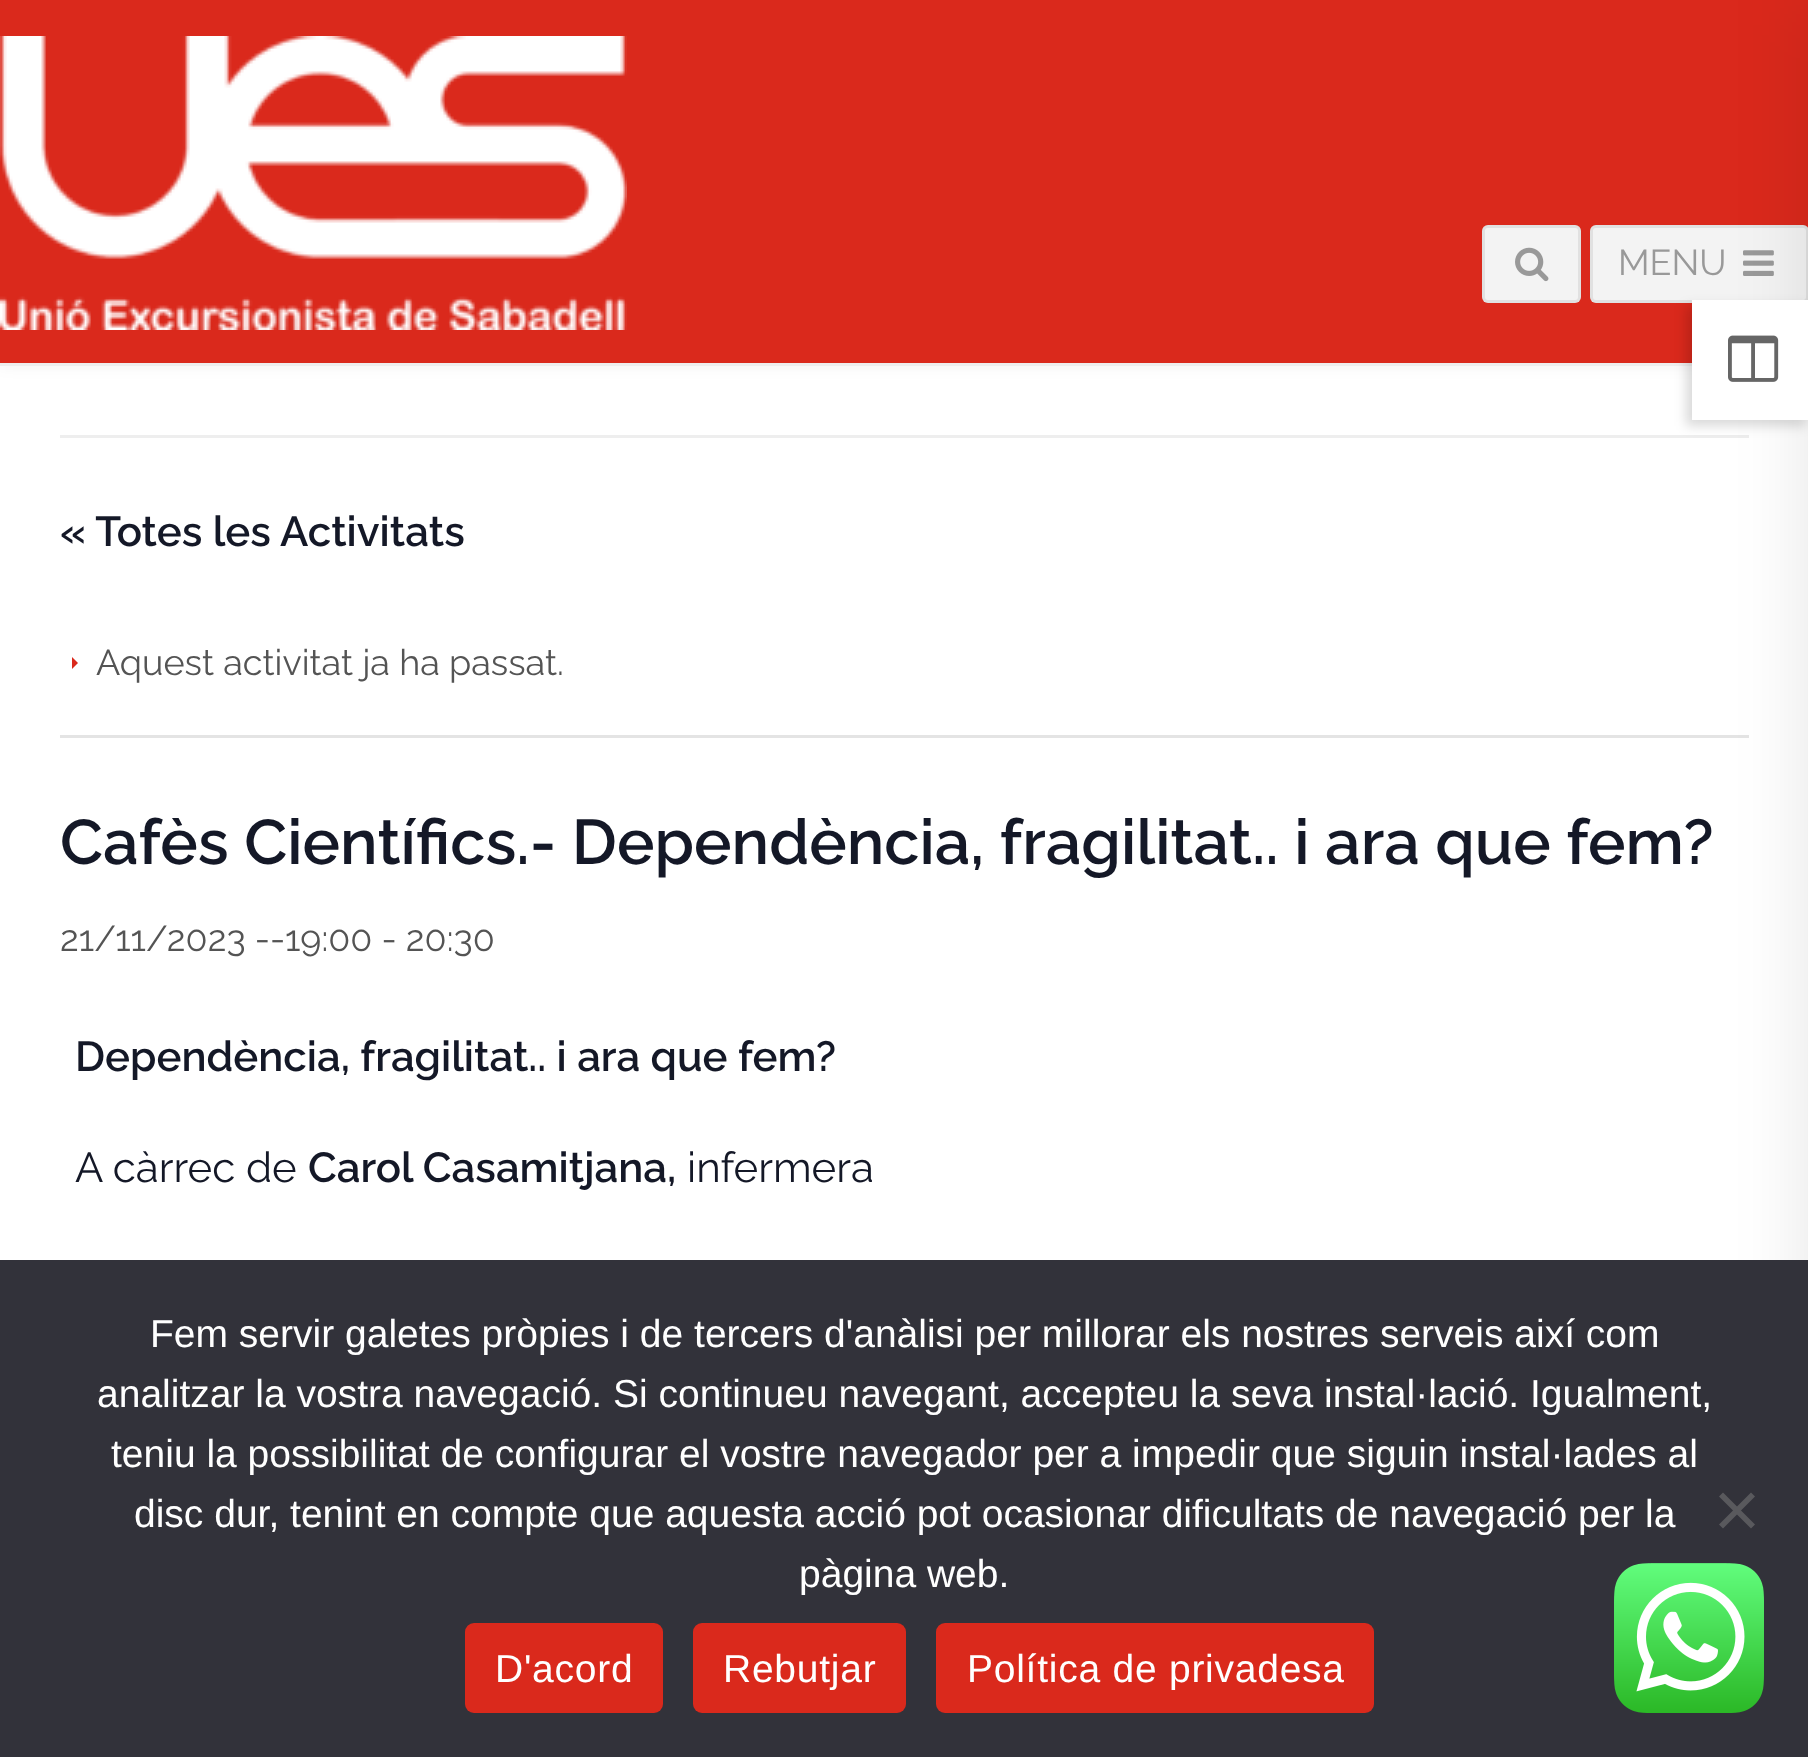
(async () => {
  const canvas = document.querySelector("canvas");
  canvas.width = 1808;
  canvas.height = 1757;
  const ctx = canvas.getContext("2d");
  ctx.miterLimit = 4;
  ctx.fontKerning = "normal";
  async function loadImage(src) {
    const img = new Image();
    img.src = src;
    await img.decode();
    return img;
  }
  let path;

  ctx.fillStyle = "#ffffff";
  ctx.fillRect(0, 0, 1808, 1757);
  ctx.fillStyle = "rgba(0, 0, 0, 0.05)";
  ctx.filter = "blur(7.5px)";
  ctx.beginPath();
  ctx.rect(0, 0, 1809, 366);
  ctx.fill();
  ctx.filter = "none";
  ctx.fillStyle = "#da291c";
  ctx.fillRect(0, 0, 1808, 363);
  ctx.fillStyle = "#eeeeee";
  ctx.fillRect(0, 363, 1692, 3);
  ctx.drawImage(await loadImage("img/1.png"), 0, 36, 627, 294);
  ctx.fillStyle = "#f3f3f3";
  ctx.beginPath();
  ctx.roundRect(1482, 225, 99, 78, 6);
  ctx.fill();
  ctx.beginPath();
  ctx.roundRect(1483.5, 226.5, 96, 75, 4.5);
  ctx.strokeStyle = "rgba(0, 0, 0, 0.07)";
  ctx.lineWidth = 3;
  ctx.stroke();
  ctx.drawImage(await loadImage("img/2.png"), 1515, 247, 34, 35);
  ctx.beginPath();
  ctx.roundRect(1590, 225, 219, 78, 6);
  ctx.fill();
  ctx.beginPath();
  ctx.roundRect(1591.5, 226.5, 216, 75, 4.5);
  ctx.stroke();
  ctx.drawImage(await loadImage("img/3.png"), 1743, 250, 31, 26);
  ctx.fillStyle = "#eeeeee";
  ctx.fillRect(60, 435, 1689, 3);
  ctx.fillStyle = "#e4e4e4";
  ctx.fillRect(60, 735, 1689, 3);
  ctx.fillStyle = "rgba(0, 0, 0, 0.1)";
  ctx.filter = "blur(37.5px)";
  ctx.beginPath();
  ctx.rect(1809, 0, 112, 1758);
  ctx.fill();
  ctx.filter = "none";
  ctx.fillStyle = "rgba(0, 0, 0, 0.15)";
  ctx.filter = "blur(6px)";
  ctx.beginPath();
  ctx.rect(1686, 306, 120, 120);
  ctx.fill();
  ctx.filter = "none";
  ctx.fillStyle = "#ffffff";
  ctx.fillRect(1692, 300, 116, 120);
  ctx.drawImage(await loadImage("img/4.png"), 1728, 335, 51, 47);
  ctx.fillStyle = "#da291c";
  path = new Path2D("M72 669V657L78 663Z");
  ctx.fill(path);
  ctx.fillStyle = "#32323a";
  ctx.fillRect(0, 1260, 1808, 497);
  ctx.fillStyle = "#59595d";
  path = new Path2D("M1751 1492.5L1755 1496.5L1723 1528.5L1719 1524.5Z");
  ctx.fill(path);
  path = new Path2D("M1719 1496.5L1723 1492.5L1755 1524.5L1751 1528.5Z");
  ctx.fill(path);
  ctx.fillStyle = "#da291c";
  ctx.beginPath();
  ctx.roundRect(465, 1623, 198, 90, 9);
  ctx.fill();
  ctx.beginPath();
  ctx.roundRect(693, 1623, 213, 90, 9);
  ctx.fill();
  ctx.beginPath();
  ctx.roundRect(936, 1623, 438, 90, 9);
  ctx.fill();
  ctx.drawImage(await loadImage("img/5.png"), 1614, 1563, 150, 150);
  ctx.font = "100 36px 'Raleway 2'";
  ctx.fillStyle = "#999999";
  ctx.fillText("MENU", 1618, 275);
  ctx.font = "100 42px Raleway";
  ctx.fillStyle = "#141827";
  ctx.fillText("« Totes les Activitats", 60, 546);
  ctx.font = "100 36px 'Raleway 2'";
  ctx.fillStyle = "#545454";
  ctx.fillText("Aquest activitat ja ha passat.", 96, 675);
  ctx.font = "100 63px Raleway";
  ctx.fillStyle = "#141827";
  ctx.fillText("Cafès Científics.- Dependència, fragilitat.. i ara que fem?", 60, 864);
  ctx.font = "100 36px 'Raleway 2'";
  ctx.fillStyle = "#545454";
  ctx.fillText("21/11/2023 --19:00 - 20:30", 60, 951);
  ctx.font = "100 42px Raleway";
  ctx.fillStyle = "#141827";
  ctx.fillText("Dependència, fragilitat.. i ara que fem?", 75, 1071);
  ctx.font = "100 42px 'Raleway 2'";
  ctx.fillText("A càrrec de", 75, 1182);
  ctx.font = "100 42px Raleway";
  ctx.fillText("Carol Casamitjana,", 308, 1182);
  ctx.font = "100 42px 'Raleway 2'";
  ctx.fillText("infermera", 687, 1182);
  ctx.font = "39px Liberation Sans";
  ctx.fillStyle = "#ffffff";
  for (const [text, x, y] of [
    ["Fem servir galetes pròpies i de tercers d'anàlisi per millorar els nostres serveis així com", 150, 1347],
    ["analitzar la vostra navegació. Si continueu navegant, accepteu la seva instal·lació. Igualment,", 97, 1407],
    ["teniu la possibilitat de configurar el vostre navegador per a impedir que siguin instal·lades al", 111, 1467],
    ["disc dur, tenint en compte que aquesta acció pot ocasionar dificultats de navegació per la", 134, 1527],
    ["pàgina web.", 799, 1587],
  ]) {
    ctx.fillText(text, x, y);
  }
  ctx.letterSpacing = "0.75px";
  for (const [text, x, y] of [
    ["D'acord", 495, 1682],
    ["Rebutjar", 723, 1682],
    ["Política de privadesa", 967, 1682],
  ]) {
    ctx.fillText(text, x, y);
  }
})();
